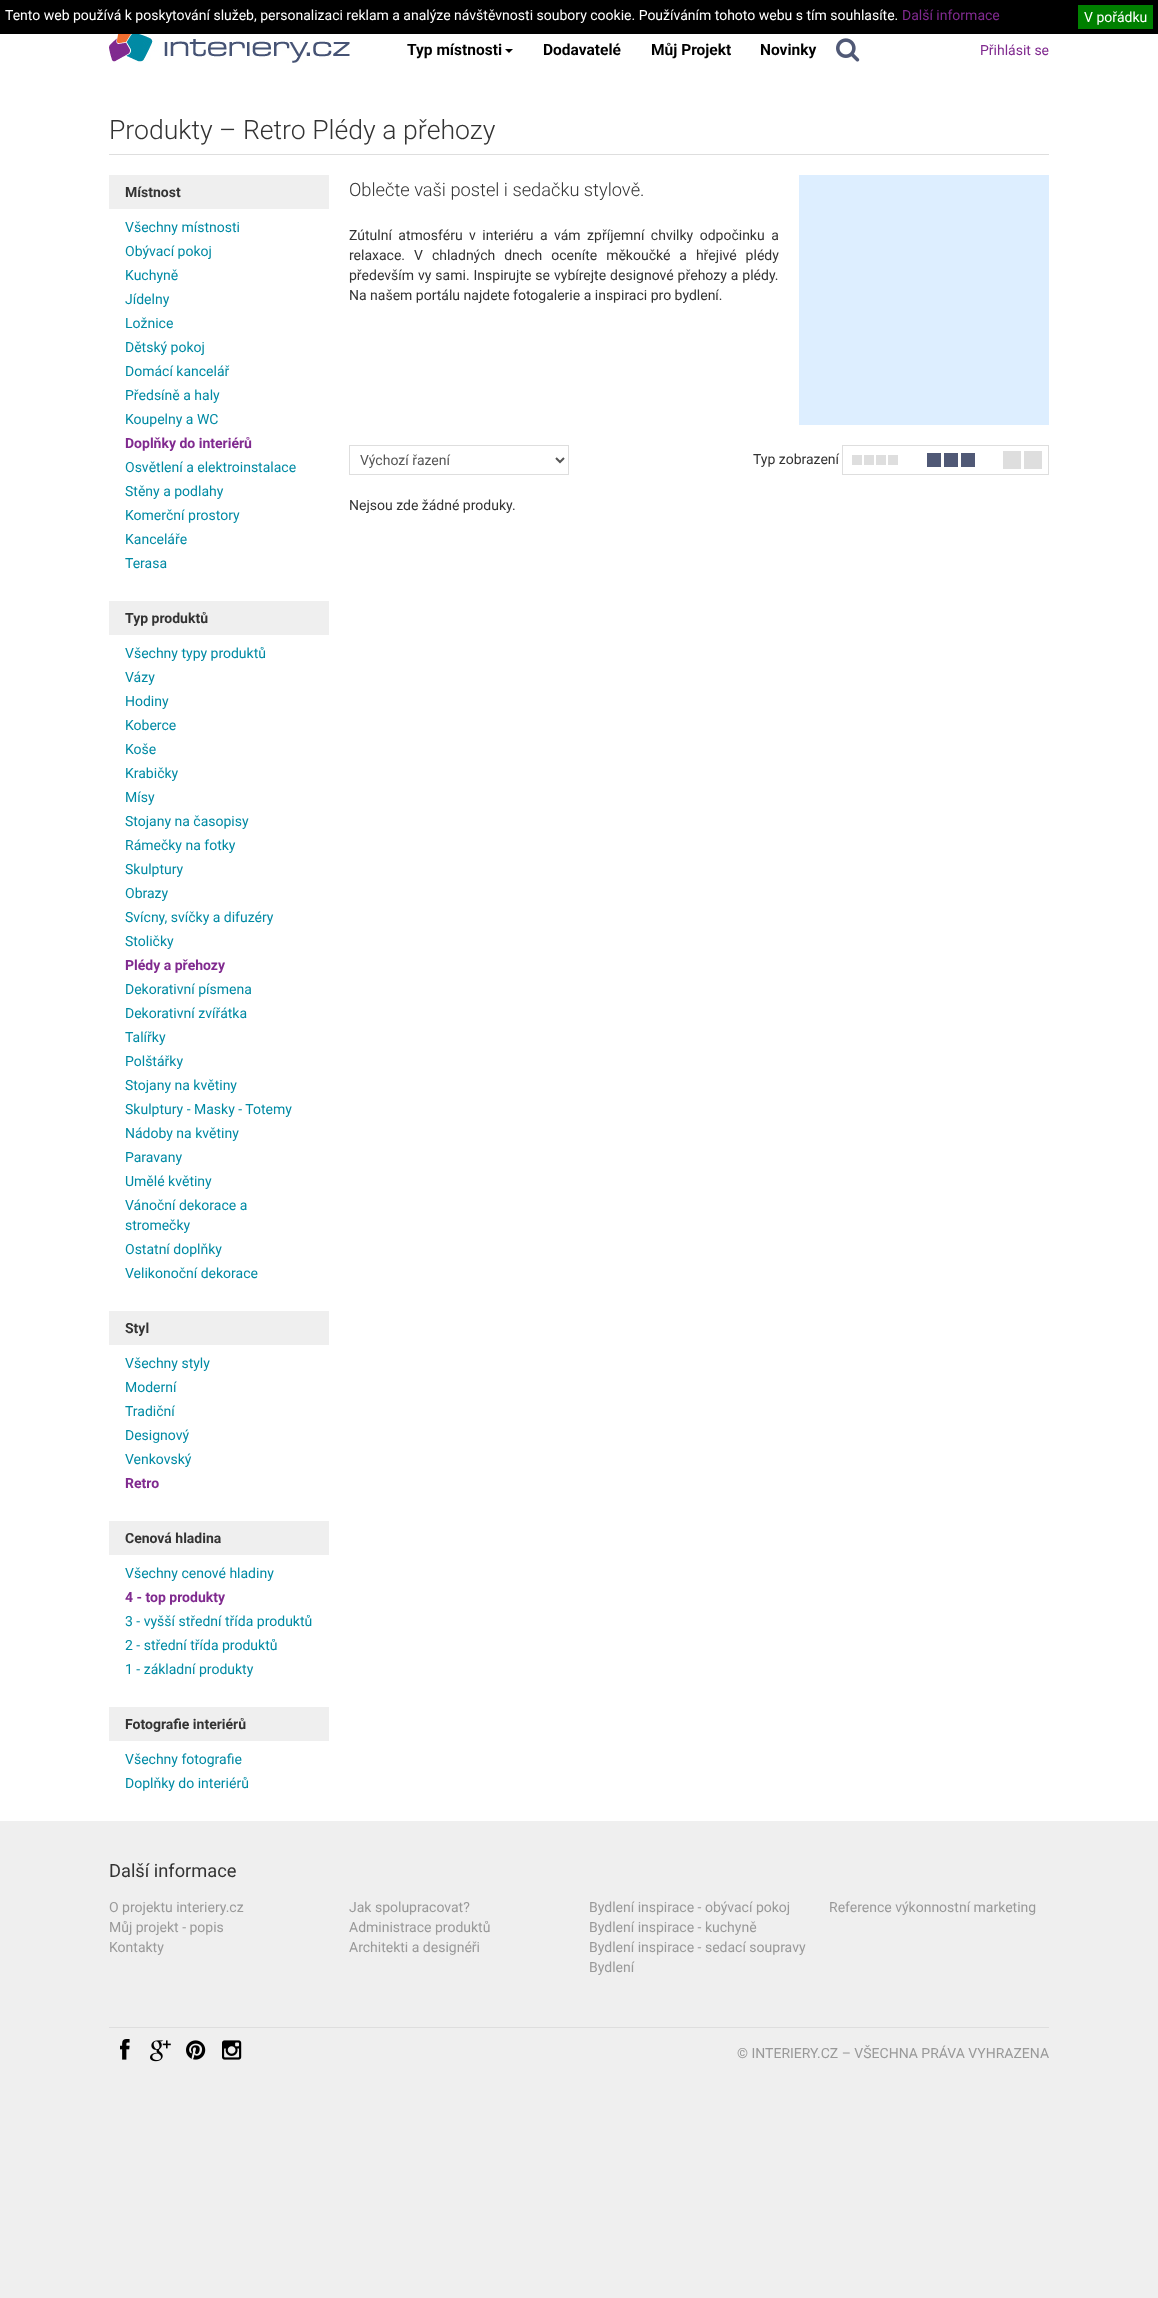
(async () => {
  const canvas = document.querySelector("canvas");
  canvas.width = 1158;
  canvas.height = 2298;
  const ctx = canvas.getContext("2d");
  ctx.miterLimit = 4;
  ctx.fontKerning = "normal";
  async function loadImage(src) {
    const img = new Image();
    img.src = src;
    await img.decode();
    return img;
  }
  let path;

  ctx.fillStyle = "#efefef";
  ctx.fillRect(0, 0, 1158, 2298);
  for (const [x, y, w, h, color] of [
    [0, 34, 1158, 1787, "#ffffff"],
    [0, 0, 1158, 34, "#000000"],
    [1078, 5, 75, 24, "#008000"],
  ]) {
    ctx.fillStyle = color;
    ctx.fillRect(x, y, w, h);
  }
  ctx.drawImage(await loadImage("img/1.png"), 109, 34, 241, 29);
  ctx.fillStyle = "#000000";
  path = new Path2D("M505 49H513L509 53Z");
  ctx.fill(path);
  ctx.drawImage(await loadImage("img/2.png"), 836, 38, 24, 24);
  for (const [x, y, w, h, color] of [
    [109, 154, 940, 1, "#dedede"],
    [109, 175, 220, 34, "#efefef"],
    [109, 601, 220, 34, "#efefef"],
    [109, 1311, 220, 34, "#efefef"],
    [109, 1521, 220, 34, "#efefef"],
    [109, 1707, 220, 34, "#efefef"],
    [799, 175, 250, 250, "#ddeeff"],
  ]) {
    ctx.fillStyle = color;
    ctx.fillRect(x, y, w, h);
  }
  ctx.strokeStyle = "#dedede";
  ctx.strokeRect(349.5, 445.5, 219, 29);
  path = new Path2D("M556 458L560 462L564 458");
  ctx.strokeStyle = "#555555";
  ctx.lineWidth = 2;
  ctx.stroke(path);
  ctx.strokeStyle = "#dedede";
  ctx.lineWidth = 1;
  ctx.strokeRect(842.5, 445.5, 206, 29);
  for (const [x, y, w, h, color] of [
    [888, 455, 10, 10, "#dedede"],
    [852, 455, 10, 10, "#dedede"],
    [876, 455, 10, 10, "#dedede"],
    [864, 455, 10, 10, "#dedede"],
    [961, 453, 14, 14, "#505976"],
    [927, 453, 14, 14, "#505976"],
    [944, 453, 14, 14, "#505976"],
    [1024, 451, 18, 18, "#dedede"],
    [1003, 451, 18, 18, "#dedede"],
    [109, 2027, 940, 1, "#dedede"],
  ]) {
    ctx.fillStyle = color;
    ctx.fillRect(x, y, w, h);
  }
  ctx.drawImage(await loadImage("img/3.png"), 120, 2039, 10, 21);
  ctx.drawImage(await loadImage("img/4.png"), 150, 2040, 21, 22);
  ctx.drawImage(await loadImage("img/5.png"), 186, 2040, 20, 20);
  ctx.drawImage(await loadImage("img/6.png"), 222, 2040, 20, 20);
  ctx.font = "14px Roboto";
  ctx.fillStyle = "#ffffff";
  ctx.fillText("Tento web používá k poskytování služeb, personalizaci reklam a analýze návštěvnosti soubory cookie. Používáním tohoto webu s tím souhlasíte.", 5, 20);
  ctx.fillStyle = "#802a8f";
  ctx.fillText("Další informace", 902, 20);
  ctx.fillStyle = "#ffffff";
  ctx.fillText("V pořádku", 1084, 22);
  ctx.font = "bold 15.5px Roboto";
  ctx.fillStyle = "#000000";
  for (const [text, x, y] of [
    ["Typ místnosti", 407, 55],
    ["Dodavatelé", 543, 55],
    ["Můj Projekt", 651, 55],
    ["Novinky", 760, 55],
  ]) {
    ctx.fillText(text, x, y);
  }
  ctx.font = "14px Roboto";
  ctx.fillStyle = "#802a8f";
  ctx.fillText("Přihlásit se", 980, 55);
  ctx.font = "300 26.6px Roboto";
  ctx.fillStyle = "#333333";
  ctx.fillText("Produkty – Retro Plédy a přehozy", 109, 139);
  ctx.font = "bold 14px Roboto";
  ctx.fillText("Místnost", 125, 197);
  ctx.font = "14px Roboto";
  ctx.fillStyle = "#008aa4";
  for (const [text, x, y] of [
    ["Všechny místnosti", 125, 232],
    ["Obývací pokoj", 125, 256],
    ["Kuchyně", 125, 280],
    ["Jídelny", 125, 304],
    ["Ložnice", 125, 328],
    ["Dětský pokoj", 125, 352],
    ["Domácí kancelář", 125, 376],
    ["Předsíně a haly", 125, 400],
    ["Koupelny a WC", 125, 424],
  ]) {
    ctx.fillText(text, x, y);
  }
  ctx.font = "bold 14px Roboto";
  ctx.fillStyle = "#802a8f";
  ctx.fillText("Doplňky do interiérů", 125, 448);
  ctx.font = "14px Roboto";
  ctx.fillStyle = "#008aa4";
  for (const [text, x, y] of [
    ["Osvětlení a elektroinstalace", 125, 472],
    ["Stěny a podlahy", 125, 496],
    ["Komerční prostory", 125, 520],
    ["Kanceláře", 125, 544],
    ["Terasa", 125, 568],
  ]) {
    ctx.fillText(text, x, y);
  }
  ctx.font = "bold 14px Roboto";
  ctx.fillStyle = "#333333";
  ctx.fillText("Typ produktů", 125, 623);
  ctx.font = "14px Roboto";
  ctx.fillStyle = "#008aa4";
  for (const [text, x, y] of [
    ["Všechny typy produktů", 125, 658],
    ["Vázy", 125, 682],
    ["Hodiny", 125, 706],
    ["Koberce", 125, 730],
    ["Koše", 125, 754],
    ["Krabičky", 125, 778],
    ["Mísy", 125, 802],
    ["Stojany na časopisy", 125, 826],
    ["Rámečky na fotky", 125, 850],
    ["Skulptury", 125, 874],
    ["Obrazy", 125, 898],
    ["Svícny, svíčky a difuzéry", 125, 922],
    ["Stoličky", 125, 946],
  ]) {
    ctx.fillText(text, x, y);
  }
  ctx.font = "bold 14px Roboto";
  ctx.fillStyle = "#802a8f";
  ctx.fillText("Plédy a přehozy", 125, 970);
  ctx.font = "14px Roboto";
  ctx.fillStyle = "#008aa4";
  for (const [text, x, y] of [
    ["Dekorativní písmena", 125, 994],
    ["Dekorativní zvířátka", 125, 1018],
    ["Talířky", 125, 1042],
    ["Polštářky", 125, 1066],
    ["Stojany na květiny", 125, 1090],
    ["Skulptury - Masky - Totemy", 125, 1114],
    ["Nádoby na květiny", 125, 1138],
    ["Paravany", 125, 1162],
    ["Umělé květiny", 125, 1186],
    ["Vánoční dekorace a", 125, 1210],
    ["stromečky", 125, 1230],
    ["Ostatní doplňky", 125, 1254],
    ["Velikonoční dekorace", 125, 1278],
  ]) {
    ctx.fillText(text, x, y);
  }
  ctx.font = "bold 14px Roboto";
  ctx.fillStyle = "#333333";
  ctx.fillText("Styl", 125, 1333);
  ctx.font = "14px Roboto";
  ctx.fillStyle = "#008aa4";
  for (const [text, x, y] of [
    ["Všechny styly", 125, 1368],
    ["Moderní", 125, 1392],
    ["Tradiční", 125, 1416],
    ["Designový", 125, 1440],
    ["Venkovský", 125, 1464],
  ]) {
    ctx.fillText(text, x, y);
  }
  ctx.font = "bold 14px Roboto";
  ctx.fillStyle = "#802a8f";
  ctx.fillText("Retro", 125, 1488);
  ctx.fillStyle = "#333333";
  ctx.fillText("Cenová hladina", 125, 1543);
  ctx.font = "14px Roboto";
  ctx.fillStyle = "#008aa4";
  ctx.fillText("Všechny cenové hladiny", 125, 1578);
  ctx.font = "bold 14px Roboto";
  ctx.fillStyle = "#802a8f";
  ctx.fillText("4 - top produkty", 125, 1602);
  ctx.font = "14px Roboto";
  ctx.fillStyle = "#008aa4";
  for (const [text, x, y] of [
    ["3 - vyšší střední třída produktů", 125, 1626],
    ["2 - střední třída produktů", 125, 1650],
    ["1 - základní produkty", 125, 1674],
  ]) {
    ctx.fillText(text, x, y);
  }
  ctx.font = "bold 14px Roboto";
  ctx.fillStyle = "#333333";
  ctx.fillText("Fotografie interiérů", 125, 1729);
  ctx.font = "14px Roboto";
  ctx.fillStyle = "#008aa4";
  ctx.fillText("Všechny fotografie", 125, 1764);
  ctx.fillText("Doplňky do interiérů", 125, 1788);
  ctx.font = "300 18.25px Roboto";
  ctx.fillStyle = "#333333";
  ctx.fillText("Oblečte vaši postel i sedačku stylově.", 349, 196);
  ctx.wordSpacing = "3px";
  ctx.font = "14px Roboto";
  ctx.fillText("Zútulní atmosféru v interiéru a vám zpříjemní chvilky odpočinku a", 349, 240);
  ctx.wordSpacing = "5.5px";
  ctx.fillText("relaxace. V chladných dnech oceníte měkoučké a hřejivé plédy", 349, 260);
  ctx.wordSpacing = "0.5px";
  ctx.fillText("především vy sami. Inspirujte se vybírejte designové přehozy a plédy.", 349, 280);
  ctx.wordSpacing = "0px";
  ctx.fillText("Na našem portálu najdete fotogalerie a inspiraci pro bydlení.", 349, 300);
  ctx.fillStyle = "#555555";
  ctx.fillText("Výchozí řazení", 360, 465);
  ctx.fillStyle = "#333333";
  ctx.fillText("Typ zobrazení", 753, 464);
  ctx.fillText("Nejsou zde žádné produky.", 349, 510);
  ctx.font = "18.25px Roboto";
  ctx.fillText("Další informace", 109, 1877);
  ctx.font = "14px Roboto";
  ctx.fillStyle = "#999999";
  for (const [text, x, y] of [
    ["O projektu interiery.cz", 109, 1912],
    ["Můj projekt - popis", 109, 1932],
    ["Kontakty", 109, 1952],
    ["Jak spolupracovat?", 349, 1912],
    ["Administrace produktů", 349, 1932],
    ["Architekti a designéři", 349, 1952],
    ["Bydlení inspirace - obývací pokoj", 589, 1912],
    ["Bydlení inspirace - kuchyně", 589, 1932],
    ["Bydlení inspirace - sedací soupravy", 589, 1952],
    ["Bydlení", 589, 1972],
    ["Reference výkonnostní marketing", 829, 1912],
    ["© INTERIERY.CZ – VŠECHNA PRÁVA VYHRAZENA", 737, 2058],
  ]) {
    ctx.fillText(text, x, y);
  }
})();
